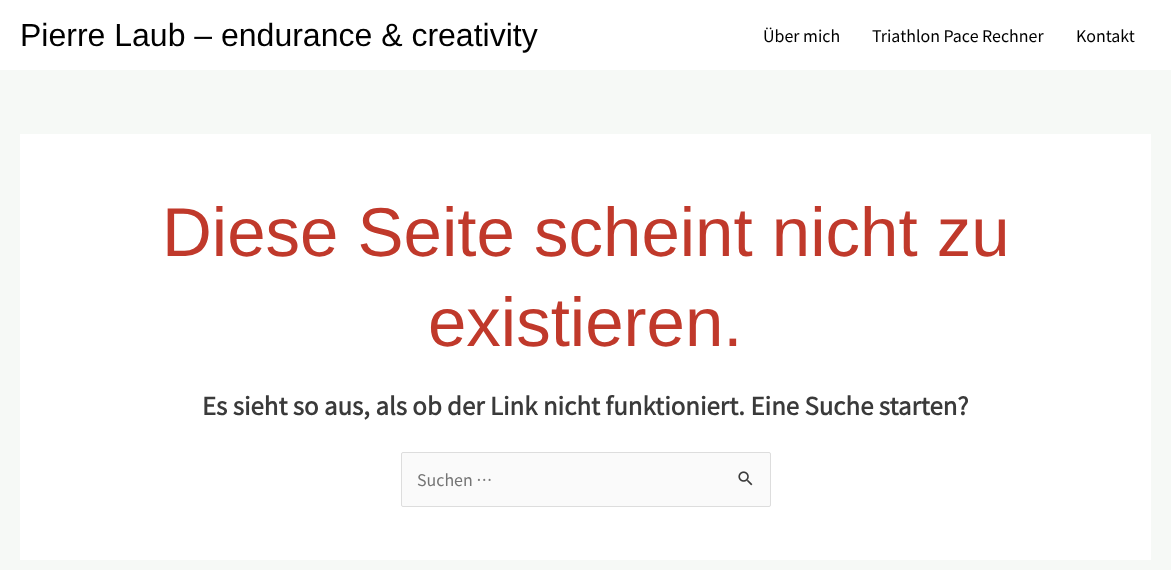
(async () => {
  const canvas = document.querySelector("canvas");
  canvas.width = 1171;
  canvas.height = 570;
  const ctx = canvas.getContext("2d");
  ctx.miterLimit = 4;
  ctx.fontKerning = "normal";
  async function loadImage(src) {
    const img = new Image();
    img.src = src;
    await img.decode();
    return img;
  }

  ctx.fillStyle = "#f6f9f6";
  ctx.fillRect(0, 0, 1171, 570);
  ctx.fillStyle = "#ffffff";
  ctx.fillRect(0, 0, 1171, 70);
  ctx.fillRect(20, 134, 1131, 426);
  ctx.fillStyle = "#fafafa";
  ctx.beginPath();
  ctx.roundRect(401.5, 452.5, 369, 54, 1.5);
  ctx.fill();
  ctx.strokeStyle = "#dddddd";
  ctx.stroke();
  ctx.drawImage(await loadImage("img/1.png"), 738, 471, 15, 15);
  ctx.font = "32px Liberation Sans";
  ctx.fillStyle = "#000000";
  ctx.fillText("Pierre Laub – endurance & creativity", 20, 46);
  ctx.font = "16px Noto Sans JP";
  for (const [text, x, y] of [
    ["Über mich", 763, 42],
    ["Triathlon Pace Rechner", 872, 42],
    ["Kontakt", 1076, 42],
  ]) {
    ctx.fillText(text, x, y);
  }
  ctx.font = "69px Liberation Sans";
  ctx.fillStyle = "#c0392b";
  ctx.fillText("Diese Seite scheint nicht zu", 162, 256);
  ctx.fillText("existieren.", 428, 346);
  ctx.font = "bold 24px Noto Sans JP";
  ctx.fillStyle = "#3a3a3a";
  ctx.fillText("Es sieht so aus, als ob der Link nicht funktioniert. Eine Suche starten?", 202, 415);
  ctx.font = "16px Noto Sans JP";
  ctx.fillStyle = "#757575";
  ctx.fillText("Suchen …", 417, 486);
})();
